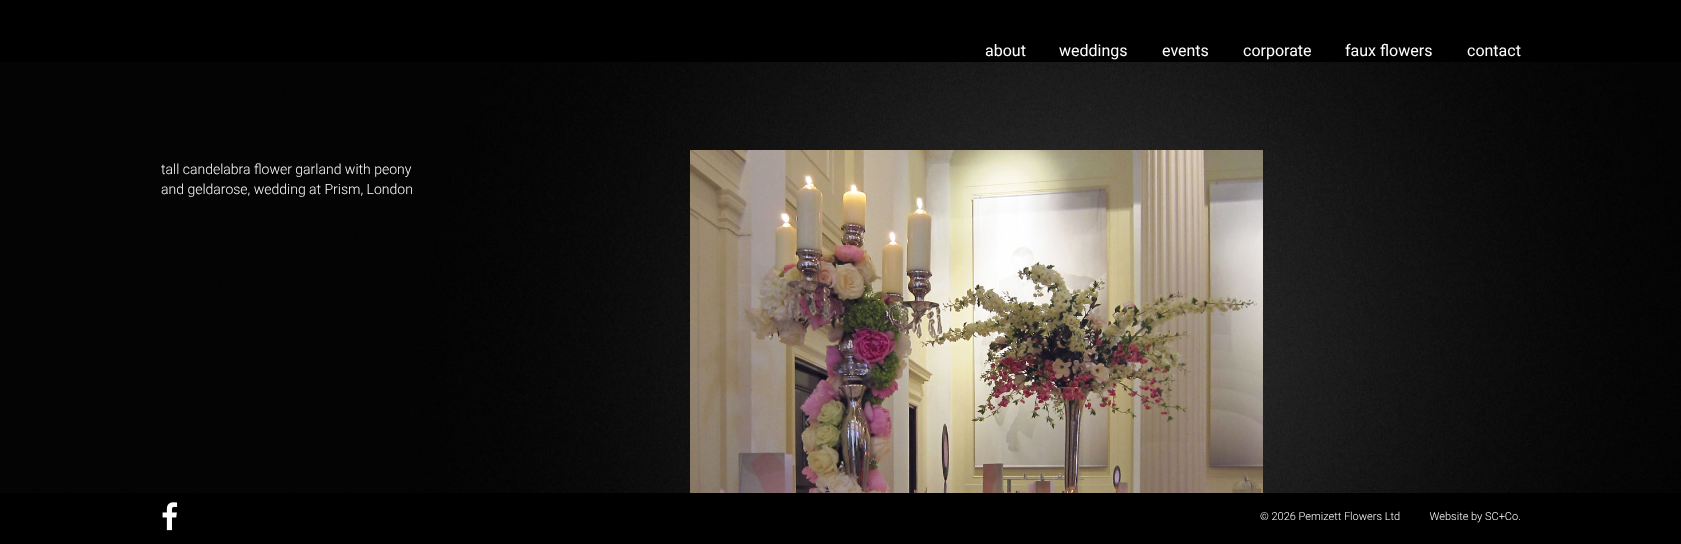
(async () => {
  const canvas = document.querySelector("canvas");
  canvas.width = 1681;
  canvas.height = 544;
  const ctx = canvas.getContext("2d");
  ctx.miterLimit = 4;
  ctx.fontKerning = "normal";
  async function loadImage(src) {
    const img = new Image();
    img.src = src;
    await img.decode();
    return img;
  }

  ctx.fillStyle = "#ffffff";
  ctx.fillRect(0, 0, 1681, 544);
  ctx.drawImage(await loadImage("img/1.png"), 0, 62, 1681, 431);
  ctx.fillStyle = "#000000";
  ctx.fillRect(0, 0, 1681, 62);
  ctx.drawImage(await loadImage("img/2.png"), 690, 150, 573, 343);
  ctx.fillRect(0, 493, 1681, 51);
  ctx.drawImage(await loadImage("img/3.png"), 162, 502, 16, 29);
  ctx.font = "16px Roboto";
  ctx.fillStyle = "#ffffff";
  for (const [text, x, y] of [
    ["about", 985, 56],
    ["weddings", 1059, 56],
    ["events", 1162, 56],
    ["corporate", 1243, 56],
    ["faux flowers", 1345, 56],
    ["contact", 1467, 56],
  ]) {
    ctx.fillText(text, x, y);
  }
  ctx.font = "300 14px Roboto";
  ctx.fillText("tall candelabra flower garland with peony", 161, 174);
  ctx.fillText("and geldarose, wedding at Prism, London", 161, 194);
  ctx.font = "300 11px Roboto";
  ctx.fillText("© 2026 Pemizett Flowers Ltd           Website by SC+Co.", 1260, 520);
})();
